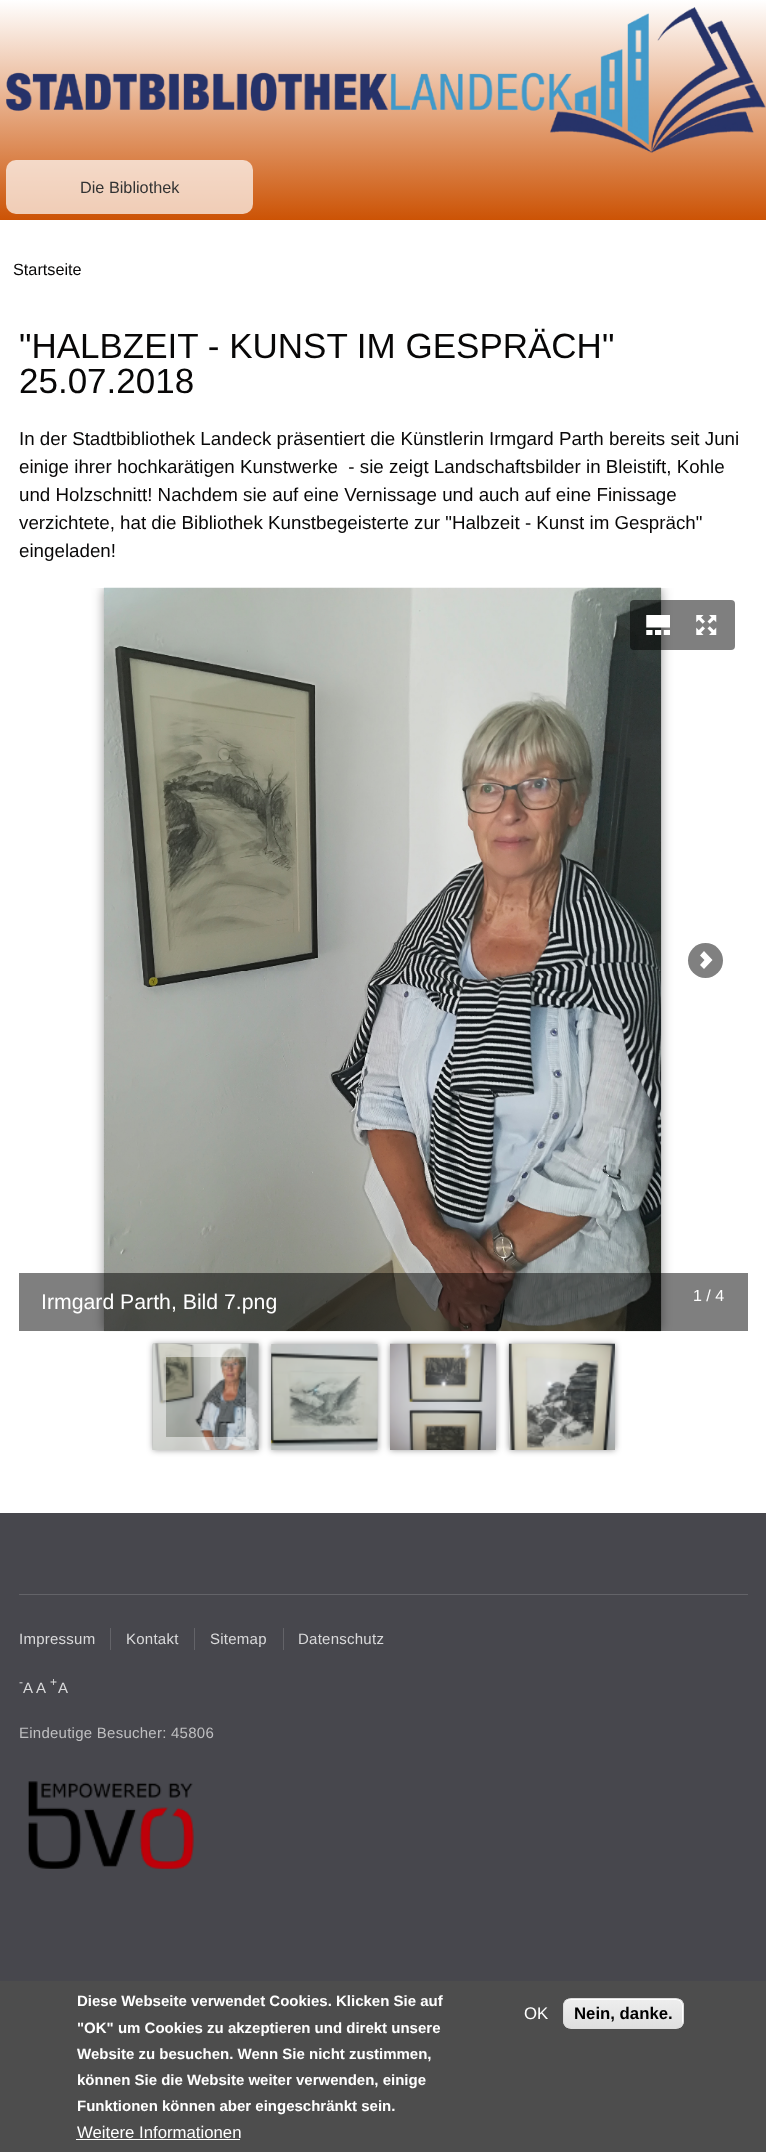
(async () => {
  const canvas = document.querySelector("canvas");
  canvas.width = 766;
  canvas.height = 2152;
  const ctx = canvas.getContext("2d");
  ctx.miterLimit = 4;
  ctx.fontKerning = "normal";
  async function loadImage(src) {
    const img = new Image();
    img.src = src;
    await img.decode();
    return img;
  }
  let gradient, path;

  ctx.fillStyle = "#47474d";
  ctx.fillRect(0, 0, 766, 2152);
  ctx.fillStyle = "#ffffff";
  ctx.fillRect(0, 220, 766, 1293);
  gradient = ctx.createLinearGradient(383, 0, 383, 220);
  gradient.addColorStop(0, "#ffffff");
  gradient.addColorStop(1, "#cc5305");
  ctx.fillStyle = gradient;
  ctx.fillRect(0, 0, 766, 220);
  ctx.drawImage(await loadImage("img/1.png"), 6, 7, 760, 146);
  ctx.fillStyle = "rgba(255, 255, 255, 0.7)";
  ctx.beginPath();
  ctx.roundRect(6, 160, 247, 54, 10);
  ctx.fill();
  ctx.save();
  ctx.beginPath();
  ctx.rect(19, 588, 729, 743);
  ctx.clip();
  ctx.fillStyle = "rgba(0, 0, 0, 0.4)";
  ctx.filter = "blur(6px)";
  ctx.beginPath();
  ctx.rect(104, 588, 557, 743);
  ctx.fill();
  ctx.filter = "none";
  ctx.restore();
  ctx.drawImage(await loadImage("img/2.png"), 103, 587, 559, 745);
  ctx.fillStyle = "rgba(0, 0, 0, 0.5)";
  ctx.beginPath();
  ctx.roundRect(630, 600, 105, 50, 4);
  ctx.fill();
  ctx.drawImage(await loadImage("img/3.png"), 646, 615, 24, 20);
  ctx.drawImage(await loadImage("img/4.png"), 696, 615, 21, 20);
  ctx.fillStyle = "#808080";
  ctx.beginPath();
  ctx.arc(705.5, 960.5, 17.5, 0, Math.PI * 2);
  ctx.fill();
  ctx.fillStyle = "#ffffff";
  path = new Path2D("M700 965L704 969L712.5 960L704 951L700 955.5L704.5 960Z");
  ctx.fill(path);
  ctx.fillStyle = "rgba(0, 0, 0, 0.5)";
  ctx.fillRect(19, 1273, 729, 58);
  ctx.fillStyle = "rgba(0, 0, 0, 0.4)";
  ctx.filter = "blur(3px)";
  ctx.beginPath();
  ctx.rect(153, 1344, 106, 106);
  ctx.fill();
  ctx.filter = "none";
  ctx.save();
  ctx.beginPath();
  ctx.rect(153, 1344, 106, 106);
  ctx.clip();
  ctx.filter = "blur(3px)";
  ctx.beginPath();
  ctx.rect(153, 1326, 106, 143);
  ctx.fill();
  ctx.filter = "none";
  ctx.restore();
  ctx.drawImage(await loadImage("img/5.png"), 152, 1343, 107, 107);
  ctx.strokeStyle = "rgba(255, 255, 255, 0.5)";
  ctx.lineWidth = 13;
  ctx.strokeRect(159.5, 1350.5, 93, 93);
  ctx.filter = "blur(3px)";
  ctx.beginPath();
  ctx.rect(271, 1344, 107, 106);
  ctx.fill();
  ctx.filter = "none";
  ctx.drawImage(await loadImage("img/6.png"), 271, 1344, 107, 106);
  ctx.filter = "blur(3px)";
  ctx.beginPath();
  ctx.rect(390, 1344, 106, 106);
  ctx.fill();
  ctx.filter = "none";
  ctx.drawImage(await loadImage("img/7.png"), 390, 1343, 107, 107);
  ctx.filter = "blur(3px)";
  ctx.beginPath();
  ctx.rect(509, 1344, 106, 106);
  ctx.fill();
  ctx.filter = "none";
  ctx.drawImage(await loadImage("img/8.png"), 508, 1343, 107, 107);
  for (const [x, y, w, h, color] of [
    [19, 1594, 729, 1, "#636368"],
    [110, 1628, 1, 22, "#636368"],
    [194, 1628, 1, 22, "#636368"],
    [283, 1628, 1, 22, "#636368"],
  ]) {
    ctx.fillStyle = color;
    ctx.fillRect(x, y, w, h);
  }
  ctx.drawImage(await loadImage("img/9.png"), 28, 1781, 166, 88);
  ctx.fillStyle = "#4d4d4d";
  ctx.fillRect(0, 1981, 766, 171);
  ctx.fillStyle = "#ffffff";
  ctx.fillRect(76, 2139, 164, 1);
  ctx.save();
  ctx.beginPath();
  ctx.roundRect(563, 1998, 121, 31, 8);
  ctx.clip();
  gradient = ctx.createLinearGradient(623, 1999, 623, 2028);
  gradient.addColorStop(0.05, "#ededed");
  gradient.addColorStop(1, "#dfdfdf");
  ctx.fillStyle = gradient;
  ctx.fillRect(563, 1999, 121, 29);
  ctx.restore();
  path = new Path2D("M570 2000H676C680 2000 682 2003 682 2006V2022C682 2024 682 2025 681 2027C682 2026 683 2024 683 2022V2005C683 2002 680 1999 677 1999H570C567 1999 564 2002 564 2005V2006C564 2003 567 2000 570 2000Z");
  ctx.fill(path);
  ctx.beginPath();
  ctx.roundRect(563.5, 1998.5, 120, 30, 7.5);
  ctx.strokeStyle = "#dcdcdc";
  ctx.lineWidth = 1;
  ctx.stroke();
  ctx.font = "16.25px Liberation Sans";
  ctx.fillStyle = "#333333";
  ctx.fillText("Die Bibliothek", 80, 193);
  ctx.fillStyle = "#080707";
  ctx.fillText("Startseite", 13, 275);
  ctx.font = "35px Liberation Sans";
  ctx.fillText("\"HALBZEIT - KUNST IM GESPRÄCH\"", 19, 358);
  ctx.fillText("25.07.2018", 19, 393);
  ctx.font = "18.75px Liberation Sans";
  for (const [text, x, y] of [
    ["In der Stadtbibliothek Landeck präsentiert die Künstlerin Irmgard Parth bereits seit Juni", 19, 445],
    ["einige ihrer hochkarätigen Kunstwerke  - sie zeigt Landschaftsbilder in Bleistift, Kohle", 19, 473],
    ["und Holzschnitt! Nachdem sie auf eine Vernissage und auch auf eine Finissage", 19, 501],
    ["verzichtete, hat die Bibliothek Kunstbegeisterte zur \"Halbzeit - Kunst im Gespräch\"", 19, 529],
    ["eingeladen!", 19, 557],
  ]) {
    ctx.fillText(text, x, y);
  }
  ctx.font = "21.25px Liberation Sans";
  ctx.fillStyle = "#ffffff";
  ctx.fillText("Irmgard Parth, Bild 7.png", 41, 1309);
  ctx.font = "16px Liberation Sans";
  ctx.fillText("1 / 4", 693, 1301);
  ctx.letterSpacing = "0.25px";
  ctx.font = "15px Liberation Sans";
  ctx.fillStyle = "#dadadb";
  for (const [text, x, y] of [
    ["Impressum", 19, 1644],
    ["Kontakt", 126, 1644],
    ["Sitemap", 210, 1644],
    ["Datenschutz", 298, 1644],
  ]) {
    ctx.fillText(text, x, y);
  }
  ctx.font = "12px Liberation Sans";
  ctx.fillText("-", 19, 1686);
  ctx.font = "15px Liberation Sans";
  ctx.fillText("A", 23, 1693);
  ctx.fillText("A", 36, 1693);
  ctx.font = "12px Liberation Sans";
  ctx.fillText("+", 50, 1686);
  ctx.font = "15px Liberation Sans";
  ctx.fillText("A", 58, 1693);
  ctx.fillStyle = "#bfbfc1";
  ctx.fillText("Eindeutige Besucher: 45806", 19, 1738);
  ctx.letterSpacing = "0px";
  ctx.font = "bold 15px Liberation Sans";
  ctx.fillStyle = "#ffffff";
  for (const [text, x, y] of [
    ["Diese Webseite verwendet Cookies. Klicken Sie auf", 77, 2006],
    ["\"OK\" um Cookies zu akzeptieren und direkt unsere", 77, 2033],
    ["Website zu besuchen. Wenn Sie nicht zustimmen,", 77, 2059],
    ["können Sie die Website weiter verwenden, einige", 77, 2085],
    ["Funktionen können aber eingeschränkt sein.", 77, 2111],
  ]) {
    ctx.fillText(text, x, y);
  }
  ctx.font = "16.75px Liberation Sans";
  ctx.fillText("Weitere Informationen", 77, 2138);
  ctx.fillText("OK", 524, 2019);
  ctx.font = "bold 16.75px Liberation Sans";
  ctx.fillStyle = "#000000";
  ctx.fillText("Nein, danke.", 574, 2019);
})();
